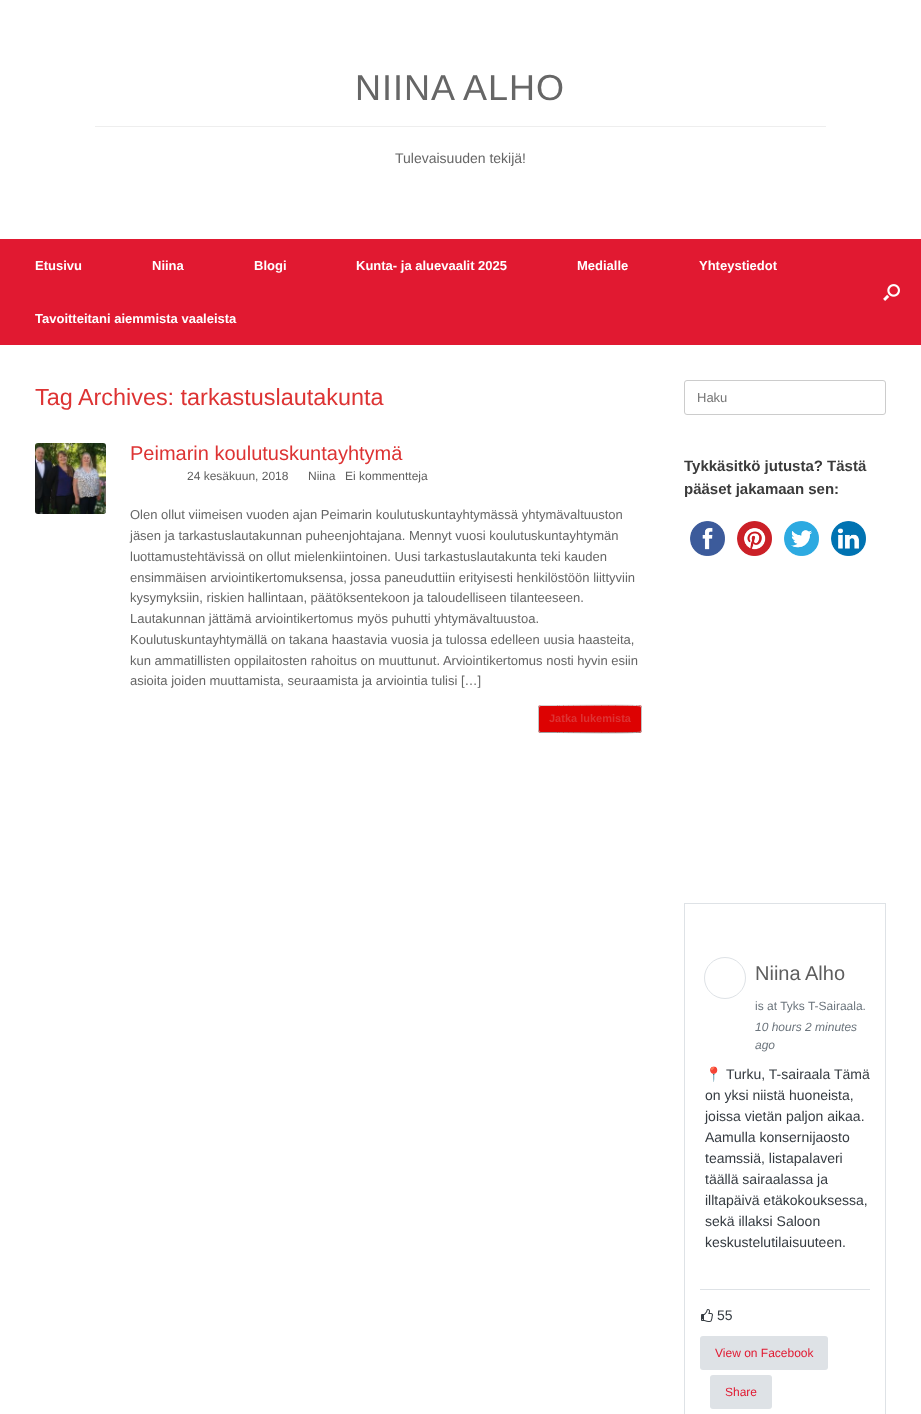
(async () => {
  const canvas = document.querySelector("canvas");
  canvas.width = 921;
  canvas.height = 1414;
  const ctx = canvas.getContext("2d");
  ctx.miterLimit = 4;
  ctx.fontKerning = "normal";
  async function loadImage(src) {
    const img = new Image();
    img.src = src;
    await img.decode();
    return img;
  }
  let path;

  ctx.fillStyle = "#ffffff";
  ctx.fillRect(0, 0, 921, 1414);
  ctx.fillStyle = "#eeeeee";
  ctx.fillRect(95, 126, 731, 1);
  ctx.fillStyle = "#e11931";
  ctx.fillRect(0, 239, 921, 106);
  ctx.drawImage(await loadImage("img/1.png"), 883, 284, 17, 17);
  ctx.drawImage(await loadImage("img/2.png"), 35, 443, 71, 71);
  ctx.fillStyle = "#dd0202";
  ctx.beginPath();
  ctx.roundRect(538, 705, 104, 28, 3);
  ctx.fill();
  path = new Path2D("M539 706L541 705.5H557.5C566 705.5 638.5 704.5 640.5 706H641");
  ctx.strokeStyle = "#d2d2d2";
  ctx.stroke(path);
  path = new Path2D("M641 706C641 706.5 641.5 707.5 641.5 708V730C641.5 730.5 641 731.5 641 732");
  ctx.strokeStyle = "#c3c3c3";
  ctx.stroke(path);
  path = new Path2D("M641 732H640.5C638.5 733.5 566 732.5 557.5 732.5H541L539 732");
  ctx.strokeStyle = "#9f9f9f";
  ctx.stroke(path);
  path = new Path2D("M539 732C539 731.5 538.5 730.5 538.5 730V708C538.5 707.5 539 706.5 539 706");
  ctx.strokeStyle = "#c3c3c3";
  ctx.stroke(path);
  ctx.beginPath();
  ctx.roundRect(684.5, 380.5, 201, 34, 2.5);
  ctx.strokeStyle = "#cccccc";
  ctx.stroke();
  ctx.drawImage(await loadImage("img/3.png"), 690, 521, 35, 35);
  ctx.drawImage(await loadImage("img/4.png"), 737, 521, 35, 35);
  ctx.drawImage(await loadImage("img/5.png"), 784, 521, 35, 35);
  ctx.drawImage(await loadImage("img/6.png"), 831, 521, 35, 35);
  ctx.strokeStyle = "#dee2e6";
  ctx.strokeRect(684.5, 903.5, 201, 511);
  ctx.beginPath();
  ctx.arc(725, 978, 20.5, 0, Math.PI * 2);
  ctx.stroke();
  ctx.fillStyle = "#dee2e6";
  ctx.fillRect(700, 1289, 170, 1);
  ctx.drawImage(await loadImage("img/7.png"), 701, 1309, 12, 13);
  ctx.beginPath();
  ctx.roundRect(700, 1336, 128, 34, 3);
  ctx.fill();
  ctx.beginPath();
  ctx.roundRect(710, 1375, 62, 34, 3);
  ctx.fill();
  ctx.letterSpacing = "1px";
  ctx.font = "36px Liberation Sans";
  ctx.fillStyle = "#666666";
  ctx.fillText("NIINA ALHO", 355, 100);
  ctx.letterSpacing = "0px";
  ctx.font = "14px Liberation Sans";
  ctx.fillText("Tulevaisuuden tekijä!", 395, 163);
  ctx.font = "bold 13px Liberation Sans";
  ctx.fillStyle = "#ffffff";
  for (const [text, x, y] of [
    ["Etusivu", 35, 270],
    ["Niina", 152, 270],
    ["Blogi", 254, 270],
    ["Kunta- ja aluevaalit 2025", 356, 270],
    ["Medialle", 577, 270],
    ["Yhteystiedot", 699, 270],
    ["Tavoitteitani aiemmista vaaleista", 35, 323],
  ]) {
    ctx.fillText(text, x, y);
  }
  ctx.font = "23.4px Liberation Sans";
  ctx.fillStyle = "#dd3333";
  ctx.fillText("Tag Archives: tarkastuslautakunta", 35, 405);
  ctx.font = "20px Liberation Sans";
  ctx.fillText("Peimarin koulutuskuntayhtymä", 130, 460);
  ctx.font = "12px Liberation Sans";
  ctx.fillStyle = "#5e5e5e";
  for (const [text, x, y] of [
    ["24 kesäkuun, 2018", 187, 480],
    ["Niina", 308, 480],
    ["Ei kommentteja", 345, 480],
  ]) {
    ctx.fillText(text, x, y);
  }
  ctx.font = "13px Liberation Sans";
  ctx.fillStyle = "#666666";
  for (const [text, x, y] of [
    ["Olen ollut viimeisen vuoden ajan Peimarin koulutuskuntayhtymässä yhtymävaltuuston", 130, 519],
    ["jäsen ja tarkastuslautakunnan puheenjohtajana. Mennyt vuosi koulutuskuntayhtymän", 130, 540],
    ["luottamustehtävissä on ollut mielenkiintoinen. Uusi tarkastuslautakunta teki kauden", 130, 561],
    ["ensimmäisen arviointikertomuksensa, jossa paneuduttiin erityisesti henkilöstöön liittyviin", 130, 582],
    ["kysymyksiin, riskien hallintaan, päätöksentekoon ja taloudelliseen tilanteeseen.", 130, 602],
    ["Lautakunnan jättämä arviointikertomus myös puhutti yhtymävaltuustoa.", 130, 623],
    ["Koulutuskuntayhtymällä on takana haastavia vuosia ja tulossa edelleen uusia haasteita,", 130, 644],
    ["kun ammatillisten oppilaitosten rahoitus on muuttunut. Arviointikertomus nosti hyvin esiin", 130, 665],
    ["asioita joiden muuttamista, seuraamista ja arviointia tulisi […]", 130, 685],
  ]) {
    ctx.fillText(text, x, y);
  }
  ctx.font = "bold 11px Liberation Sans";
  ctx.fillStyle = "#dd3333";
  ctx.fillText("Jatka lukemista", 549, 722);
  ctx.font = "13px Liberation Sans";
  ctx.fillStyle = "#757575";
  ctx.fillText("Haku", 697, 402);
  ctx.font = "bold 15px Liberation Sans";
  ctx.fillStyle = "#3b3b3b";
  ctx.fillText("Tykkäsitkö jutusta? Tästä", 684, 471);
  ctx.fillText("pääset jakamaan sen:", 684, 494);
  ctx.font = "20px Liberation Sans";
  ctx.fillStyle = "#5e5e5e";
  ctx.fillText("Niina Alho", 755, 980);
  ctx.font = "12px Liberation Sans";
  ctx.fillStyle = "#6c757d";
  ctx.fillText("is at Tyks T-Sairaala.", 755, 1010);
  ctx.font = "italic 12px Liberation Sans";
  ctx.fillText("10 hours 2 minutes", 755, 1031);
  ctx.fillText("ago", 755, 1049);
  ctx.font = "14px Noto Color Emoji";
  ctx.fillStyle = "#343a40";
  ctx.fillText("📍", 705, 1079);
  ctx.font = "14px Liberation Sans";
  for (const [text, x, y] of [
    ["Turku, T-sairaala Tämä", 726, 1079],
    ["on yksi niistä huoneista,", 705, 1100],
    ["joissa vietän paljon aikaa.", 705, 1121],
    ["Aamulla konsernijaosto", 705, 1142],
    ["teamssiä, listapalaveri", 705, 1163],
    ["täällä sairaalassa ja", 705, 1184],
    ["illtapäivä etäkokouksessa,", 705, 1205],
    ["sekä illaksi Saloon", 705, 1226],
    ["keskustelutilaisuuteen.", 705, 1247],
    ["55", 717, 1320],
  ]) {
    ctx.fillText(text, x, y);
  }
  ctx.font = "12px Liberation Sans";
  ctx.fillStyle = "#e11931";
  ctx.fillText("View on Facebook", 715, 1357);
  ctx.fillText("Share", 725, 1396);
})();
